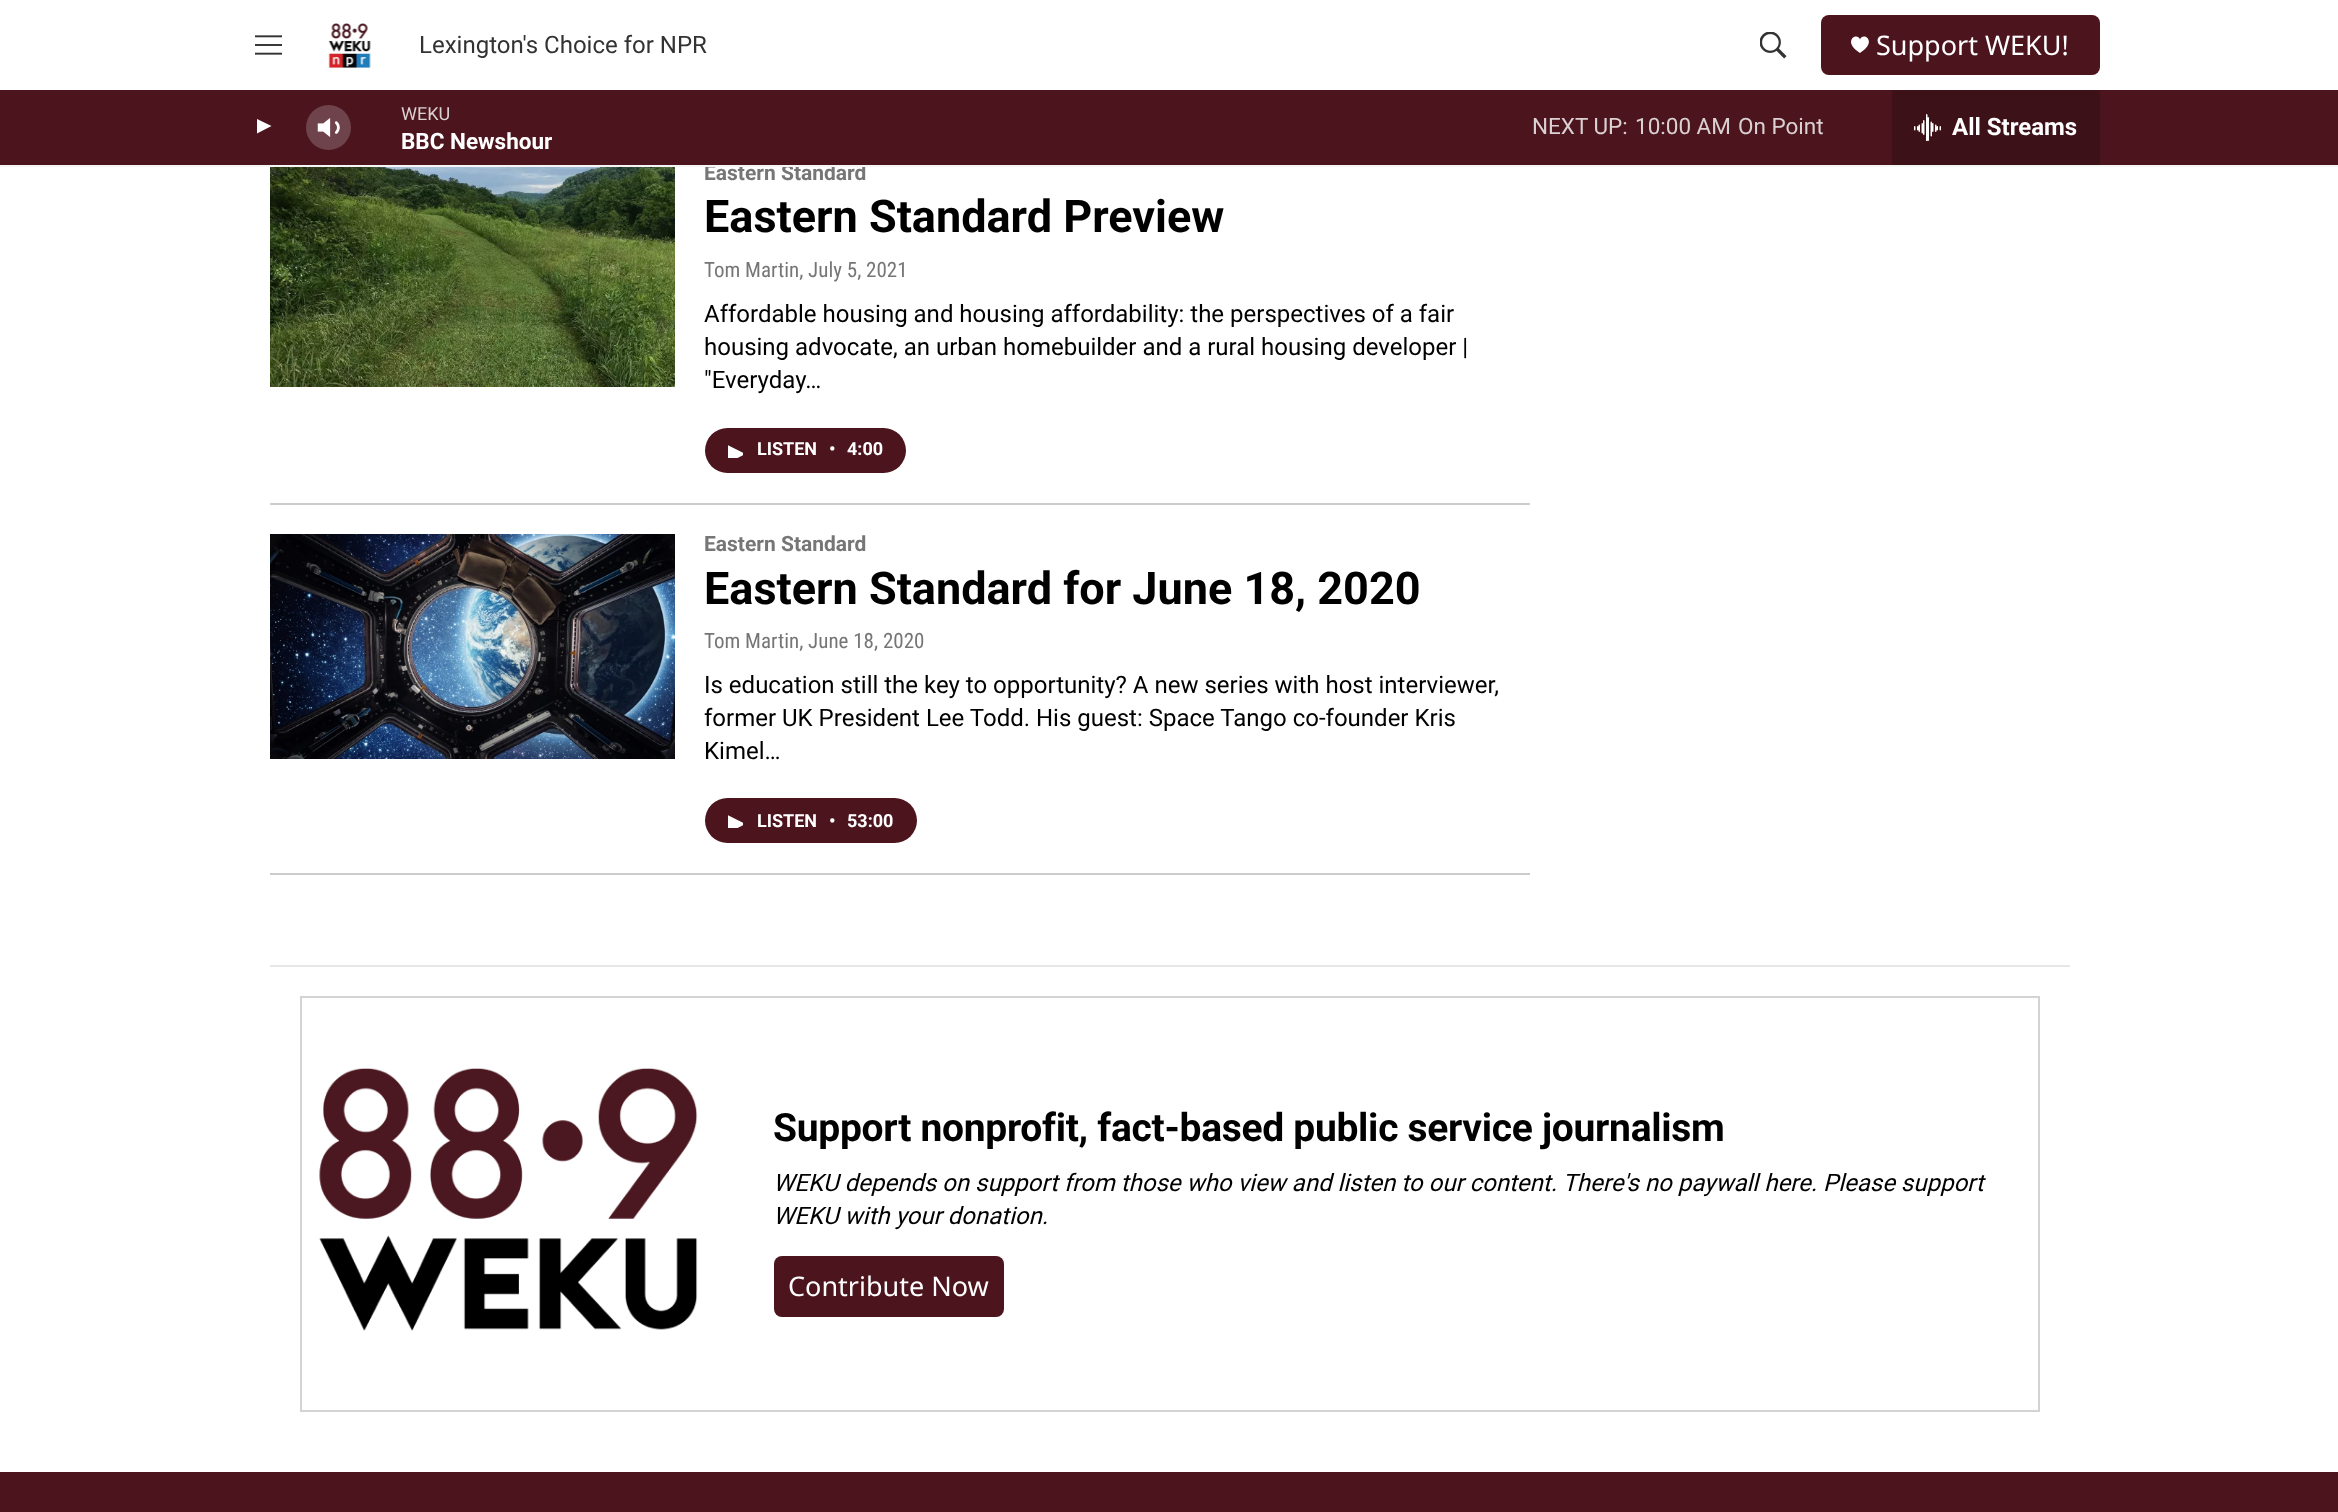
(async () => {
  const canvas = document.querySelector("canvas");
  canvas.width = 2338;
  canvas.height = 1512;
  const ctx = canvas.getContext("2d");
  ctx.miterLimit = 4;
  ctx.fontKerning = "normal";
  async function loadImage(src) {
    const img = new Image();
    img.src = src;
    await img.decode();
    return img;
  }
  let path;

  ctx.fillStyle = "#ffffff";
  ctx.fillRect(0, 0, 2338, 1512);
  ctx.drawImage(await loadImage("img/1.png"), 255, 35, 27, 20);
  ctx.drawImage(await loadImage("img/2.png"), 328, 23, 43, 46);
  ctx.drawImage(await loadImage("img/3.png"), 1760, 32, 27, 27);
  ctx.fillStyle = "#4c151e";
  ctx.beginPath();
  ctx.roundRect(1821, 15, 279, 60, 8);
  ctx.fill();
  ctx.fillStyle = "#ffffff";
  path = new Path2D("M1860 39.5C1857 31.5 1841.5 41.5 1860 53C1878.5 41.5 1863 31.5 1860 39.5Z");
  ctx.fill(path);
  ctx.fillStyle = "#cccccc";
  ctx.fillRect(270, 503, 1260, 2);
  ctx.drawImage(await loadImage("img/6.png"), 270, 167, 405, 220);
  ctx.fillStyle = "#4c151e";
  ctx.beginPath();
  ctx.roundRect(705, 428, 201, 45, 22.5);
  ctx.fill();
  ctx.save();
  ctx.beginPath();
  ctx.rect(728, 443, 15, 15);
  ctx.clip();
  ctx.fillStyle = "#ffffff";
  path = new Path2D("M727.5 445L745.5 454L727.5 463Z");
  ctx.fill(path);
  ctx.restore();
  ctx.fillStyle = "#cccccc";
  ctx.fillRect(270, 873, 1260, 2);
  ctx.drawImage(await loadImage("img/7.png"), 270, 534, 405, 225);
  ctx.fillStyle = "#4c151e";
  ctx.beginPath();
  ctx.roundRect(705, 798, 212, 45, 22.5);
  ctx.fill();
  ctx.save();
  ctx.beginPath();
  ctx.rect(728, 813, 15, 15);
  ctx.clip();
  ctx.fillStyle = "#ffffff";
  path = new Path2D("M727.5 815L745.5 824L727.5 833Z");
  ctx.fill(path);
  ctx.restore();
  ctx.fillStyle = "#e6e6e6";
  ctx.fillRect(270, 965, 1800, 2);
  ctx.strokeStyle = "#d3d3d3";
  ctx.lineWidth = 2;
  ctx.strokeRect(301, 997, 1738, 414);
  ctx.drawImage(await loadImage("img/8.png"), 319, 1068, 379, 263);
  ctx.fillStyle = "#4c151e";
  ctx.beginPath();
  ctx.roundRect(774, 1256, 230, 61, 8);
  ctx.fill();
  ctx.fillRect(0, 1472, 2338, 40);
  ctx.font = "24px Roboto";
  ctx.fillStyle = "#333333";
  ctx.fillText("Lexington's Choice for NPR", 419, 53);
  ctx.font = "27px Noto Sans";
  ctx.fillStyle = "#ffffff";
  ctx.fillText("Support WEKU!", 1876, 55);
  ctx.font = "bold 21px Roboto";
  ctx.fillStyle = "#767676";
  ctx.fillText("Eastern Standard", 704, 180);
  ctx.fillStyle = "#4c151e";
  ctx.fillRect(0, 90, 2338, 75);
  ctx.font = "22.5px Roboto";
  ctx.fillStyle = "#dbd0d2";
  for (const [text, x, y] of [
    ["On Point", 1738, 134],
    ["10:00 AM", 1635, 134],
    ["NEXT UP:", 1532, 134],
  ]) {
    ctx.fillText(text, x, y);
  }
  ctx.font = "18px Roboto";
  ctx.fillText("WEKU", 401, 120);
  ctx.drawImage(await loadImage("img/4.png"), 317, 118, 23, 19);
  ctx.fillStyle = "rgba(255, 255, 255, 0.2)";
  ctx.beginPath();
  ctx.arc(328.5, 127.5, 22.5, 0, Math.PI * 2);
  ctx.fill();
  ctx.fillStyle = "#ffffff";
  path = new Path2D("M257 119L271.5 126L257 133.5Z");
  ctx.fill(path);
  ctx.fillStyle = "#3d1118";
  ctx.fillRect(1892, 90, 208, 75);
  ctx.drawImage(await loadImage("img/5.png"), 1914, 114, 27, 27);
  ctx.save();
  ctx.beginPath();
  ctx.rect(402, 128, 150, 27);
  ctx.clip();
  ctx.font = "bold 22.5px 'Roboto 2'";
  ctx.fillStyle = "#ffffff";
  ctx.fillText("BBC Newshour", 401, 149);
  ctx.restore();
  ctx.font = "bold 24px 'Roboto 2'";
  ctx.fillStyle = "#ffffff";
  ctx.fillText("All Streams", 1952, 135);
  ctx.fillStyle = "#f5f5f5";
  ctx.fillRect(0, 165, 2338, 2);
  ctx.font = "bold 45px Roboto";
  ctx.fillStyle = "#000000";
  ctx.fillText("Eastern Standard Preview", 704, 232);
  ctx.font = "21px Roboto Condensed";
  ctx.fillStyle = "#767676";
  ctx.fillText("Tom Martin, July 5, 2021", 704, 277);
  ctx.font = "24px Roboto";
  ctx.fillStyle = "#000000";
  for (const [text, x, y] of [
    ["Affordable housing and housing affordability: the perspectives of a fair", 704, 322],
    ["housing advocate, an urban homebuilder and a rural housing developer |", 704, 355],
    ["\"Everyday…", 704, 388],
  ]) {
    ctx.fillText(text, x, y);
  }
  ctx.font = "bold 18px 'Roboto 2'";
  ctx.fillStyle = "#ffffff";
  for (const [text, x, y] of [
    ["LISTEN", 757, 455],
    ["•", 829, 455],
    ["4:00", 847, 455],
  ]) {
    ctx.fillText(text, x, y);
  }
  ctx.font = "bold 21px Roboto";
  ctx.fillStyle = "#767676";
  ctx.fillText("Eastern Standard", 704, 551);
  ctx.font = "bold 45px Roboto";
  ctx.fillStyle = "#000000";
  ctx.fillText("Eastern Standard for June 18, 2020", 704, 604);
  ctx.font = "21px Roboto Condensed";
  ctx.fillStyle = "#767676";
  ctx.fillText("Tom Martin, June 18, 2020", 704, 648);
  ctx.font = "24px Roboto";
  ctx.fillStyle = "#000000";
  for (const [text, x, y] of [
    ["Is education still the key to opportunity? A new series with host interviewer,", 704, 693],
    ["former UK President Lee Todd. His guest: Space Tango co-founder Kris", 704, 726],
    ["Kimel…", 704, 759],
  ]) {
    ctx.fillText(text, x, y);
  }
  ctx.font = "bold 18px 'Roboto 2'";
  ctx.fillStyle = "#ffffff";
  for (const [text, x, y] of [
    ["LISTEN", 757, 827],
    ["•", 829, 827],
    ["53:00", 847, 827],
  ]) {
    ctx.fillText(text, x, y);
  }
  ctx.letterSpacing = "-0.3px";
  ctx.font = "bold 39px Roboto";
  ctx.fillStyle = "#000000";
  ctx.fillText("Support nonprofit, fact-based public service journalism", 773, 1141);
  ctx.letterSpacing = "0px";
  ctx.font = "italic 24px Roboto";
  ctx.fillText("WEKU depends on support from those who view and listen to our content. There's no paywall here. Please support", 773, 1191);
  ctx.fillText("WEKU with your donation.", 773, 1224);
  ctx.font = "27px Noto Sans";
  ctx.fillStyle = "#ffffff";
  ctx.fillText("Contribute Now", 788, 1296);
})();
